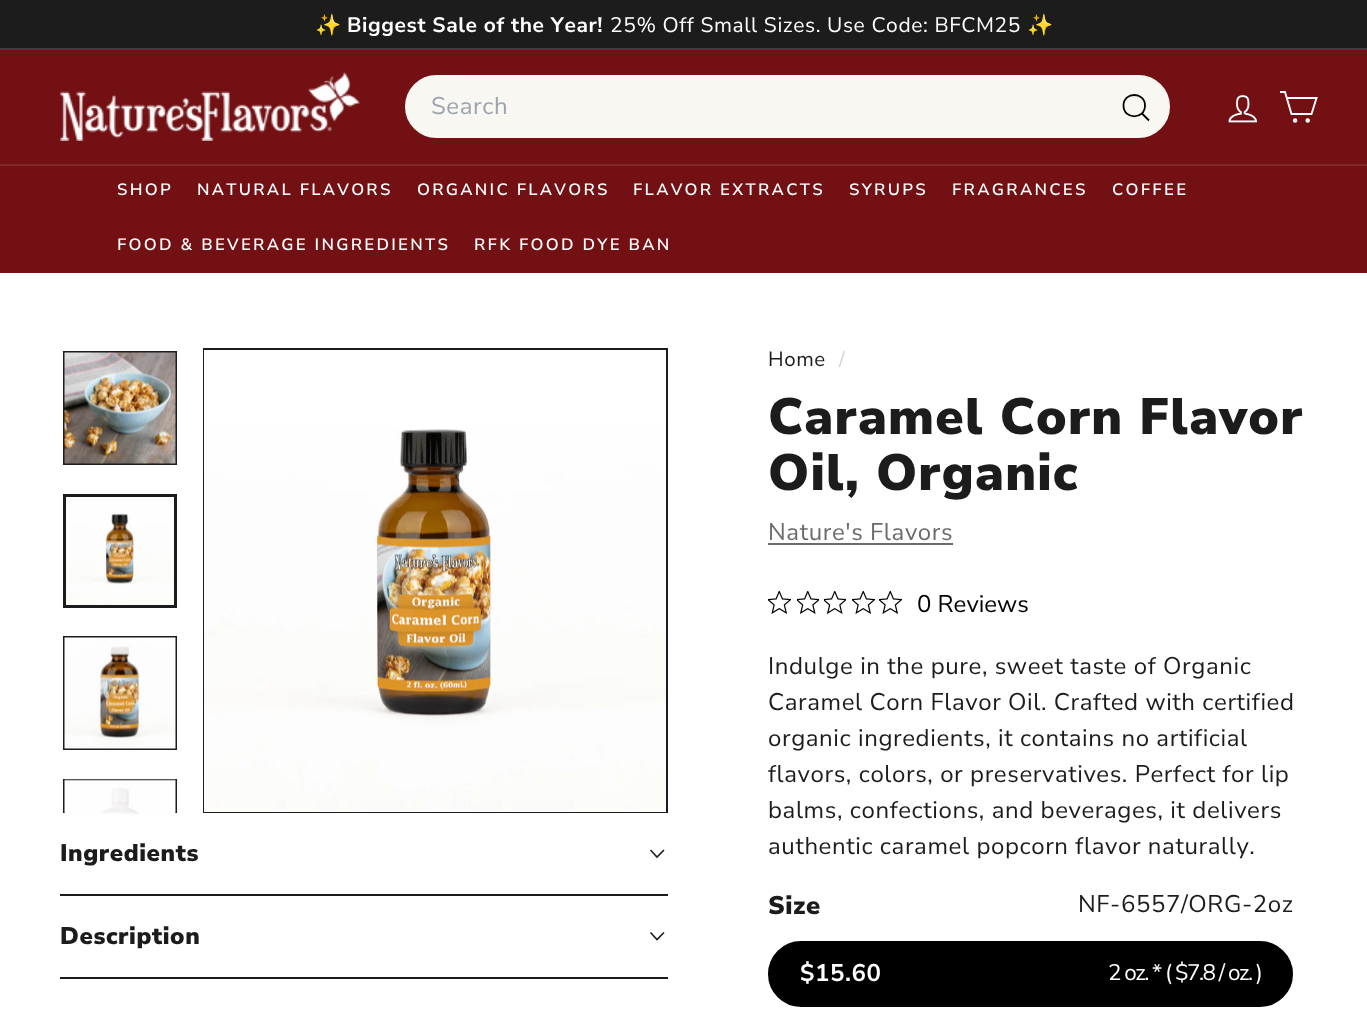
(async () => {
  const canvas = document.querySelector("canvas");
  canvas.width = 1367;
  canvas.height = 1012;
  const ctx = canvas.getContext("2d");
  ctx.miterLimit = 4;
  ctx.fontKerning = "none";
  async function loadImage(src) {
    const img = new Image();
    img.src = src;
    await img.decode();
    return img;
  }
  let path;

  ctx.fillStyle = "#ffffff";
  ctx.fillRect(0, 0, 1367, 1012);
  for (const [x, y, w, h, color] of [
    [0, 0, 1367, 48, "#1c1c1c"],
    [0, 48, 1367, 2, "#3e3e3e"],
    [0, 50, 1367, 114, "#721014"],
  ]) {
    ctx.fillStyle = color;
    ctx.fillRect(x, y, w, h);
  }
  ctx.drawImage(await loadImage("img/1.png"), 60, 72, 300, 69);
  ctx.fillStyle = "#f9f7f2";
  ctx.beginPath();
  ctx.roundRect(406, 76, 763, 61, 30.5);
  ctx.fill();
  ctx.strokeStyle = "#f9f7f2";
  ctx.lineWidth = 2;
  ctx.stroke();
  path = new Path2D("M1145 105.5C1145 120 1123.5 120 1123.5 105.5C1123.5 91.5 1145 91.5 1145 105.5M1149 120.5L1142 113.5");
  ctx.strokeStyle = "#000000";
  ctx.lineWidth = 1.8;
  ctx.stroke(path);
  ctx.drawImage(await loadImage("img/2.png"), 1228, 95, 29, 28);
  path = new Path2D("M1287 98H1316.5L1311.5 114H1291.5L1285 92H1280");
  ctx.strokeStyle = "#ffffff";
  ctx.lineWidth = 1.9;
  ctx.stroke(path);
  ctx.beginPath();
  ctx.arc(1295.1, 120.5, 1.3, 0, Math.PI * 2);
  ctx.stroke();
  ctx.fillStyle = "#ffffff";
  ctx.beginPath();
  ctx.arc(1307.7, 120.5, 1.3, 0, Math.PI * 2);
  ctx.fill();
  ctx.stroke();
  ctx.fillStyle = "#721014";
  ctx.fillRect(0, 166, 1367, 107);
  ctx.fillStyle = "#80282c";
  ctx.fillRect(0, 164, 1367, 2);
  ctx.strokeStyle = "#1c1c1c";
  ctx.lineWidth = 2;
  ctx.strokeRect(64, 352, 112, 112);
  ctx.drawImage(await loadImage("img/3.png"), 64, 352, 112, 112);
  ctx.drawImage(await loadImage("img/4.png"), 66, 497, 108, 108);
  ctx.lineWidth = 3;
  ctx.strokeRect(64.5, 495.5, 111, 111);
  ctx.lineWidth = 2;
  ctx.strokeRect(64, 637, 112, 112);
  ctx.drawImage(await loadImage("img/5.png"), 64, 637, 112, 112);
  ctx.save();
  ctx.beginPath();
  ctx.rect(63, 779, 114, 34);
  ctx.clip();
  ctx.strokeRect(64, 780, 112, 112);
  ctx.restore();
  ctx.drawImage(await loadImage("img/6.png"), 64, 779, 112, 35);
  ctx.strokeRect(204, 349, 463, 463);
  ctx.fillStyle = "#ffffff";
  ctx.fillRect(204, 350, 462, 462);
  ctx.drawImage(await loadImage("img/7.png"), 204, 429, 462, 382);
  ctx.fillStyle = "#1c1c1c";
  ctx.fillRect(60, 894, 608, 2);
  path = new Path2D("M650.5 850L657 857L664 850");
  ctx.lineWidth = 1.6;
  ctx.stroke(path);
  ctx.fillRect(60, 977, 608, 2);
  path = new Path2D("M650.5 932.5L657 939.5L664 932.5");
  ctx.stroke(path);
  ctx.fillStyle = "#6b6b6b";
  ctx.fillRect(768, 543, 185, 2);
  ctx.drawImage(await loadImage("img/8.png"), 768, 591, 23, 23);
  ctx.drawImage(await loadImage("img/9.png"), 797, 591, 22, 23);
  ctx.drawImage(await loadImage("img/9.png"), 824, 591, 22, 23);
  ctx.drawImage(await loadImage("img/8.png"), 852, 591, 23, 23);
  ctx.drawImage(await loadImage("img/8.png"), 879, 591, 23, 23);
  ctx.fillStyle = "#000000";
  ctx.beginPath();
  ctx.roundRect(769, 942, 523, 64, 32);
  ctx.fill();
  ctx.strokeStyle = "#000000";
  ctx.lineWidth = 2;
  ctx.stroke();
  ctx.letterSpacing = "0.6px";
  ctx.font = "21px Noto Color Emoji";
  ctx.fillStyle = "#ffffff";
  ctx.fillText("✨", 315, 32);
  ctx.font = "200 21px 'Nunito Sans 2'";
  ctx.fillText("Biggest Sale of the Year!", 347, 32);
  ctx.font = "200 21px Nunito Sans";
  ctx.fillText("25% Off Small Sizes. Use Code: BFCM25", 610, 32);
  ctx.font = "21px Noto Color Emoji";
  ctx.fillText("✨", 1027, 32);
  ctx.font = "200 24px Nunito Sans";
  ctx.fillStyle = "#9ca3af";
  ctx.fillText("Search", 431, 114);
  ctx.letterSpacing = "2.25px";
  ctx.font = "600 16.5px Nunito Sans";
  ctx.fillStyle = "#ffffff";
  for (const [text, x, y] of [
    ["SHOP", 117, 195],
    ["NATURAL FLAVORS", 197, 195],
    ["ORGANIC FLAVORS", 417, 195],
    ["FLAVOR EXTRACTS", 633, 195],
    ["SYRUPS", 849, 195],
    ["FRAGRANCES", 952, 195],
    ["COFFEE", 1112, 195],
    ["FOOD & BEVERAGE INGREDIENTS", 117, 250],
    ["RFK FOOD DYE BAN", 474, 250],
  ]) {
    ctx.fillText(text, x, y);
  }
  ctx.letterSpacing = "0.6px";
  ctx.font = "900 24px Nunito Sans";
  ctx.fillStyle = "#1c1c1c";
  ctx.fillText("Ingredients", 60, 861);
  ctx.fillText("Description", 60, 944);
  ctx.font = "200 20.5px Nunito Sans";
  ctx.fillText("Home", 768, 366);
  ctx.fillStyle = "#d2d2d2";
  ctx.fillText("/", 839, 366);
  ctx.letterSpacing = "1.25px";
  ctx.font = "900 51px Nunito Sans";
  ctx.fillStyle = "#1c1c1c";
  ctx.fillText("Caramel Corn Flavor", 768, 434);
  ctx.fillText("Oil, Organic", 768, 490);
  ctx.letterSpacing = "0.6px";
  ctx.font = "200 24px Nunito Sans";
  ctx.fillStyle = "#6b6b6b";
  ctx.fillText("Nature's Flavors", 768, 540);
  ctx.letterSpacing = "0px";
  ctx.fillStyle = "#000000";
  ctx.fillText("0 Reviews", 917, 612);
  ctx.letterSpacing = "0.6px";
  ctx.fillStyle = "#1c1c1c";
  for (const [text, x, y] of [
    ["Indulge in the pure, sweet taste of Organic", 768, 674],
    ["Caramel Corn Flavor Oil. Crafted with certified", 768, 710],
    ["organic ingredients, it contains no artificial", 768, 746],
    ["flavors, colors, or preservatives. Perfect for lip", 768, 782],
    ["balms, confections, and beverages, it delivers", 768, 818],
    ["authentic caramel popcorn flavor naturally.", 768, 854],
  ]) {
    ctx.fillText(text, x, y);
  }
  ctx.font = "900 25.5px Nunito Sans";
  ctx.fillText("Size", 768, 914);
  ctx.font = "200 24px Nunito Sans";
  ctx.fillText("NF-6557/ORG-2oz", 1078, 912);
  ctx.font = "200 24px 'Nunito Sans 2'";
  ctx.fillStyle = "#ffffff";
  ctx.fillText("$15.60", 800, 981);
  ctx.letterSpacing = "-1.5px";
  ctx.font = "200 22.5px Nunito Sans";
  ctx.fillText("2 oz. * ( $7.8 / oz. )", 1108, 980);
})();
